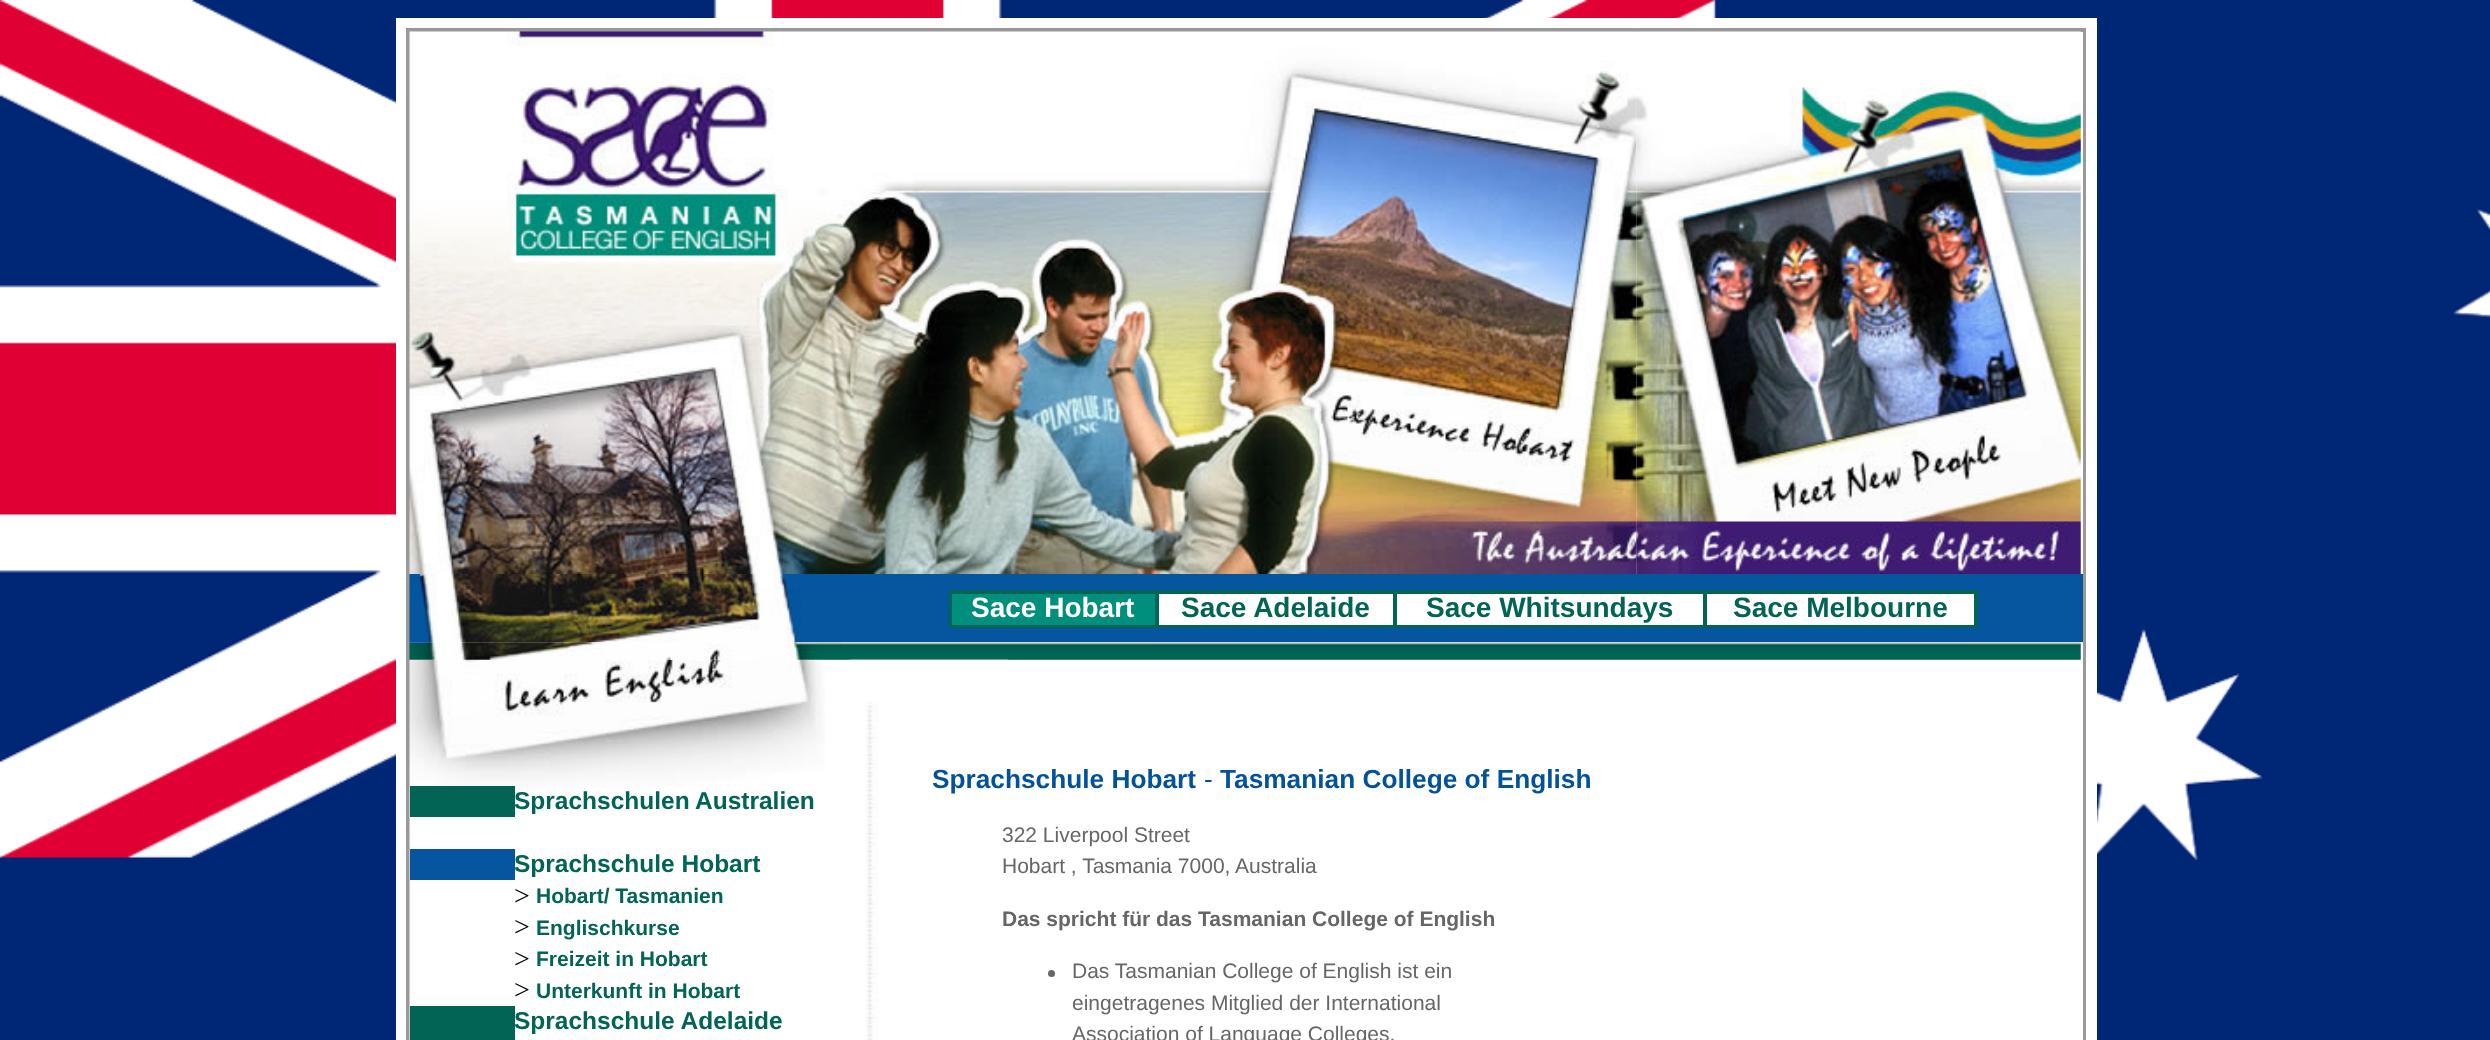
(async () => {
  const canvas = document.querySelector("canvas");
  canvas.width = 2490;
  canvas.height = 1040;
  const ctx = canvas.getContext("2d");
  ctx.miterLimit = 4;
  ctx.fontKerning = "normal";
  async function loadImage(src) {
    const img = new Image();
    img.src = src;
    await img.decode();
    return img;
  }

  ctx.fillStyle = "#ffffff";
  ctx.fillRect(0, 0, 2490, 1040);
  ctx.drawImage(await loadImage("img/1.png"), 0, 0, 2490, 1040);
  ctx.strokeStyle = "#ffffff";
  ctx.lineWidth = 9;
  ctx.strokeRect(400.5, 22.5, 1692, 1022);
  ctx.lineWidth = 2;
  ctx.strokeRect(405, 27, 1682, 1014);
  ctx.strokeStyle = "#999999";
  ctx.strokeRect(407, 29, 1678, 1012);
  ctx.strokeRect(409, 31, 1674, 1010);
  ctx.fillRect(1636, 32, 447, 542);
  ctx.drawImage(await loadImage("img/2.png"), 409, 31, 1228, 543);
  ctx.drawImage(await loadImage("img/3.png"), 1636, 31, 445, 1);
  ctx.drawImage(await loadImage("img/4.png"), 1636, 87, 445, 487);
  ctx.fillStyle = "#06569f";
  ctx.fillRect(841, 574, 1242, 68);
  ctx.fillStyle = "#ffffff";
  ctx.fillRect(410, 642, 1673, 18);
  ctx.drawImage(await loadImage("img/5.png"), 409, 574, 433, 69);
  ctx.fillRect(1159, 594, 815, 31);
  ctx.strokeStyle = "#026455";
  ctx.strokeRect(950, 591, 1027, 36);
  ctx.fillStyle = "#008f7c";
  ctx.beginPath();
  ctx.rect(951, 593, 205, 33);
  ctx.fill();
  ctx.stroke();
  ctx.strokeRect(1158, 593, 236, 33);
  ctx.strokeRect(1396, 593, 308, 33);
  ctx.strokeRect(1706, 593, 269, 33);
  ctx.drawImage(await loadImage("img/8.png"), 409, 659, 416, 381);
  ctx.drawImage(await loadImage("img/6.png"), 409, 642, 1672, 18);
  ctx.fillStyle = "#ffffff";
  ctx.fillRect(825, 660, 1258, 380);
  ctx.drawImage(await loadImage("img/7.png"), 850, 659, 158, 1);
  for (const [x, y, w, h, color] of [
    [410, 786, 105, 31, "#026455"],
    [410, 849, 105, 31, "#06569f"],
    [410, 1006, 105, 34, "#026455"],
  ]) {
    ctx.fillStyle = color;
    ctx.fillRect(x, y, w, h);
  }
  ctx.drawImage(await loadImage("img/9.png"), 865, 702, 13, 338);
  ctx.fillStyle = "#666666";
  ctx.beginPath();
  ctx.arc(1051.5, 973.5, 3.5, 0, Math.PI * 2);
  ctx.fill();
  ctx.font = "bold 28px Liberation Sans";
  ctx.fillStyle = "#ffffff";
  ctx.fillText("Sace Hobart", 971, 617);
  ctx.fillStyle = "#026455";
  for (const [text, x, y] of [
    ["Sace Adelaide", 1181, 617],
    ["Sace Whitsundays", 1426, 617],
    ["Sace Melbourne", 1733, 617],
  ]) {
    ctx.fillText(text, x, y);
  }
  ctx.font = "bold 24.5px Liberation Sans";
  for (const [text, x, y] of [
    ["Sprachschulen", 514, 809],
    ["Australien", 695, 809],
    ["Sprachschule Hobart", 514, 872],
  ]) {
    ctx.fillText(text, x, y);
  }
  ctx.font = "28px Liberation Serif";
  ctx.fillStyle = "#000000";
  ctx.fillText(">", 514, 905);
  ctx.font = "bold 21px Liberation Sans";
  ctx.fillStyle = "#026455";
  ctx.fillText("Hobart/ Tasmanien", 536, 903);
  ctx.font = "28px Liberation Serif";
  ctx.fillStyle = "#000000";
  ctx.fillText(">", 514, 936);
  ctx.font = "bold 21px Liberation Sans";
  ctx.fillStyle = "#026455";
  ctx.fillText("Englischkurse", 536, 935);
  ctx.font = "28px Liberation Serif";
  ctx.fillStyle = "#000000";
  ctx.fillText(">", 514, 968);
  ctx.font = "bold 21px Liberation Sans";
  ctx.fillStyle = "#026455";
  ctx.fillText("Freizeit in Hobart", 536, 966);
  ctx.font = "28px Liberation Serif";
  ctx.fillStyle = "#000000";
  ctx.fillText(">", 514, 999);
  ctx.font = "bold 21px Liberation Sans";
  ctx.fillStyle = "#026455";
  ctx.fillText("Unterkunft in Hobart", 536, 998);
  ctx.font = "bold 24.5px Liberation Sans";
  ctx.fillText("Sprachschule Adelaide", 514, 1029);
  ctx.font = "bold 26.25px Liberation Sans";
  ctx.fillStyle = "#01529b";
  ctx.fillText("Sprachschule Hobart", 932, 788);
  ctx.font = "26.25px Liberation Sans";
  ctx.fillText("-", 1204, 788);
  ctx.font = "bold 26.25px Liberation Sans";
  ctx.fillText("Tasmanian College of English", 1220, 788);
  ctx.font = "21px Liberation Sans";
  ctx.fillStyle = "#666666";
  ctx.fillText("322 Liverpool Street", 1002, 842);
  ctx.fillText("Hobart , Tasmania 7000, Australia", 1002, 873);
  ctx.font = "bold 21px Liberation Sans";
  ctx.fillText("Das spricht für das Tasmanian College of English", 1002, 926);
  ctx.font = "21px Liberation Sans";
  for (const [text, x, y] of [
    ["Das Tasmanian College of English ist ein", 1072, 978],
    ["eingetragenes Mitglied der International", 1072, 1010],
    ["Association of Language Colleges.", 1072, 1041],
  ]) {
    ctx.fillText(text, x, y);
  }
})();
